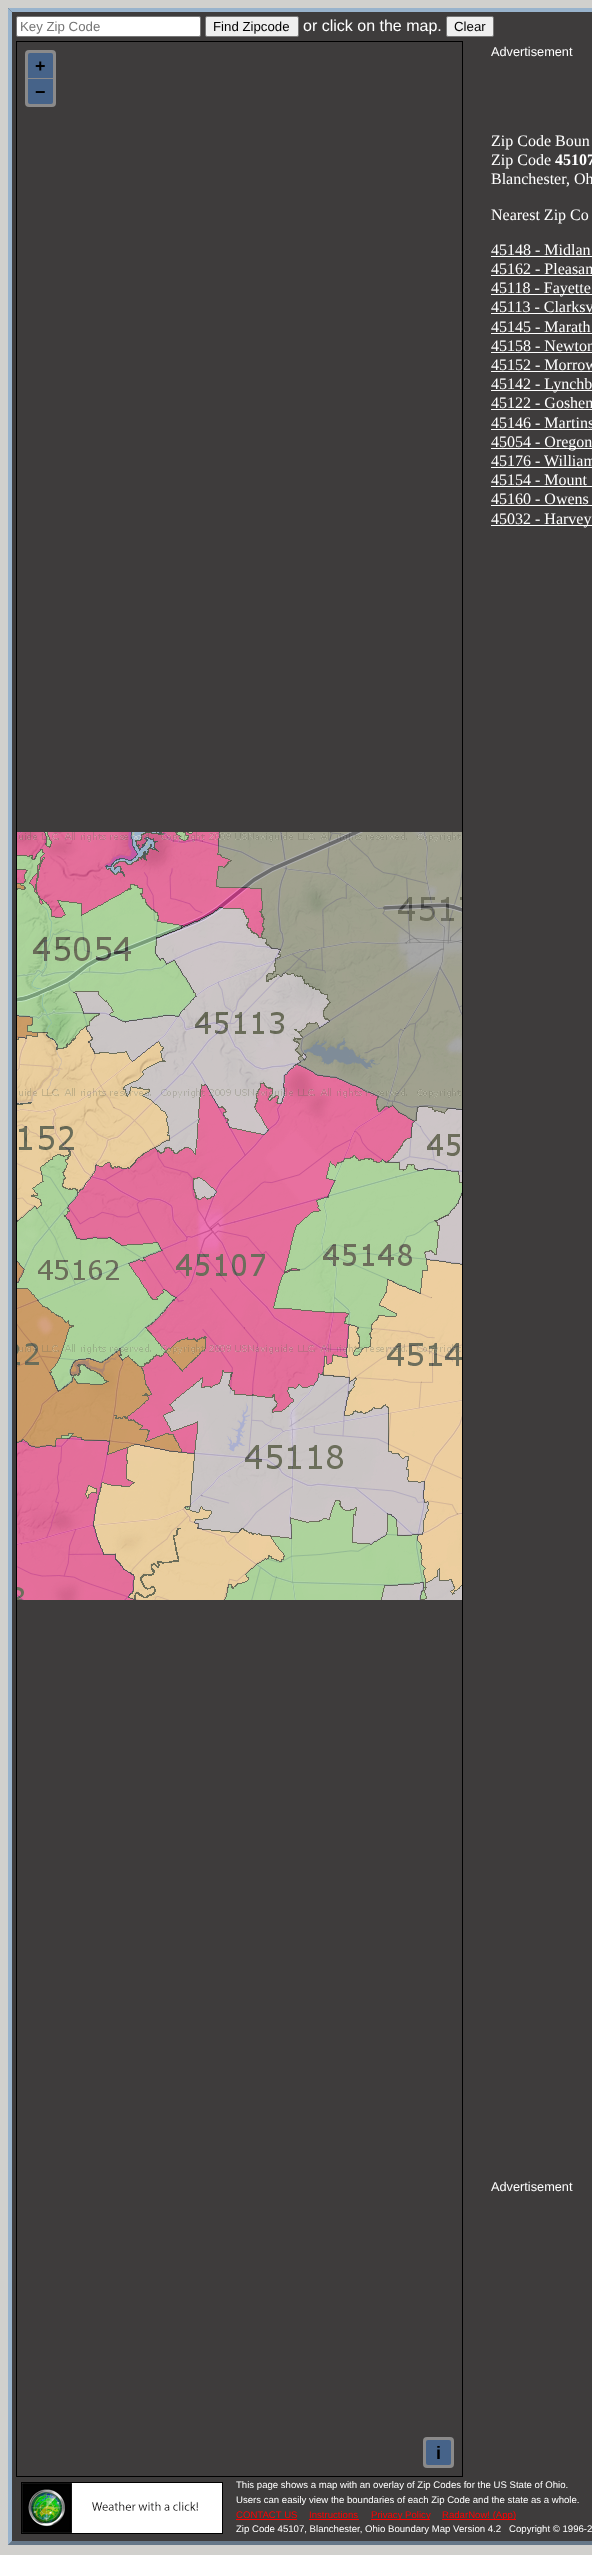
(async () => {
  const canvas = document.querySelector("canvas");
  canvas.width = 592;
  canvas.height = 2555;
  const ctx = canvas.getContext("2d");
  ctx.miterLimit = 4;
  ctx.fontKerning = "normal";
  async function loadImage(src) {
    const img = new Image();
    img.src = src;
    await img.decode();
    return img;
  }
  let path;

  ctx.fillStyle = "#d1d0cd";
  ctx.fillRect(0, 0, 592, 2555);
  ctx.fillStyle = "#3e3c3c";
  ctx.fillRect(8, 8, 584, 2537);
  ctx.fillStyle = "#99b3cc";
  path = new Path2D("M8 8H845L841 12H12Z");
  ctx.fill(path);
  ctx.fillStyle = "#667788";
  path = new Path2D("M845 2545H8L12 2541H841Z");
  ctx.fill(path);
  ctx.fillStyle = "#99b3cc";
  path = new Path2D("M8 2545V8L12 12V2541Z");
  ctx.fill(path);
  ctx.fillStyle = "#ffffff";
  ctx.beginPath();
  ctx.roundRect(16.5, 16.5, 184, 20, 1.5);
  ctx.fill();
  ctx.strokeStyle = "#767676";
  ctx.stroke();
  ctx.fillStyle = "#efefef";
  ctx.beginPath();
  ctx.roundRect(205.5, 16.5, 93, 20, 1.5);
  ctx.fill();
  ctx.stroke();
  ctx.beginPath();
  ctx.roundRect(446.5, 16.5, 47, 20, 1.5);
  ctx.fill();
  ctx.stroke();
  ctx.strokeStyle = "#000000";
  ctx.strokeRect(16.5, 41.5, 446, 2435);
  ctx.fillStyle = "#8b8a8a";
  ctx.beginPath();
  ctx.roundRect(25, 50, 31, 57, 4);
  ctx.fill();
  ctx.fillStyle = "#466389";
  ctx.beginPath();
  ctx.roundRect(28, 53, 25, 25, [2, 2, 0, 0]);
  ctx.fill();
  ctx.beginPath();
  ctx.roundRect(28, 79, 25, 25, [0, 0, 2, 2]);
  ctx.fill();
  ctx.fillStyle = "#8b8a8a";
  ctx.beginPath();
  ctx.roundRect(423, 2437, 31, 31, 4);
  ctx.fill();
  ctx.fillStyle = "#466389";
  ctx.beginPath();
  ctx.roundRect(426, 2440, 25, 25, 2);
  ctx.fill();
  ctx.drawImage(await loadImage("img/1.png"), 17, 832, 445, 768);
  for (const [x, y, w, h, color] of [
    [491, 256, 101, 1, "#ffffff"],
    [491, 275, 101, 1, "#ffffff"],
    [491, 294, 101, 1, "#ffffff"],
    [491, 313, 101, 1, "#ffffff"],
    [491, 333, 101, 1, "#ffffff"],
    [491, 352, 101, 1, "#ffffff"],
    [491, 371, 101, 1, "#ffffff"],
    [491, 390, 101, 1, "#ffffff"],
    [491, 409, 101, 1, "#ffffff"],
    [491, 429, 101, 1, "#ffffff"],
    [491, 448, 101, 1, "#ffffff"],
    [491, 467, 101, 1, "#ffffff"],
    [491, 486, 101, 1, "#ffffff"],
    [491, 505, 101, 1, "#ffffff"],
    [491, 525, 101, 1, "#ffffff"],
  ]) {
    ctx.fillStyle = color;
    ctx.fillRect(x, y, w, h);
  }
  ctx.strokeRect(21.5, 2482.5, 201, 51);
  ctx.drawImage(await loadImage("img/2.png"), 22, 2483, 200, 50);
  for (const [x, y, w, h, color] of [
    [236, 2519, 61, 1, "#ff0000"],
    [309, 2519, 50, 1, "#ff0000"],
    [371, 2519, 59, 1, "#ff0000"],
    [442, 2519, 74, 1, "#ff0000"],
  ]) {
    ctx.fillStyle = color;
    ctx.fillRect(x, y, w, h);
  }
  ctx.font = "13.25px Liberation Sans";
  ctx.fillStyle = "#757575";
  ctx.fillText("Key Zip Code", 20, 31);
  ctx.fillStyle = "#000000";
  ctx.fillText("Find Zipcode", 213, 31);
  ctx.font = "16px Liberation Sans";
  ctx.fillStyle = "#ffffff";
  ctx.fillText("or click on the map.", 303, 31);
  ctx.font = "13.25px Liberation Sans";
  ctx.fillStyle = "#000000";
  ctx.fillText("Clear", 454, 31);
  ctx.font = "bold 18px Liberation Sans";
  for (const [text, x, y] of [
    ["+", 35, 72],
    ["−", 35, 98],
    ["i", 436, 2459],
  ]) {
    ctx.fillText(text, x, y);
  }
  ctx.font = "12.75px Liberation Sans";
  ctx.fillStyle = "#ffffff";
  ctx.fillText("Advertisement", 491, 56);
  ctx.font = "16px Liberation Serif";
  ctx.fillText("Zip Code Boun", 491, 146);
  ctx.fillText("Zip Code", 491, 165);
  ctx.font = "bold 16px Liberation Serif";
  ctx.fillText("45107", 555, 165);
  ctx.font = "16px Liberation Serif";
  for (const [text, x, y] of [
    ["Blanchester, Oh", 491, 184],
    ["Nearest Zip Co", 491, 220],
    ["45148 - Midlan", 491, 255],
    ["45162 - Pleasan", 491, 274],
    ["45118 - Fayette", 491, 293],
    ["45113 - Clarksv", 491, 312],
    ["45145 - Marath", 491, 332],
    ["45158 - Newton", 491, 351],
    ["45152 - Morrow", 491, 370],
    ["45142 - Lynchb", 491, 389],
    ["45122 - Goshen", 491, 408],
    ["45146 - Martins", 491, 428],
    ["45054 - Oregon", 491, 447],
    ["45176 - William", 491, 466],
    ["45154 - Mount", 491, 485],
    ["45160 - Owens", 491, 504],
    ["45032 - Harvey", 491, 524],
  ]) {
    ctx.fillText(text, x, y);
  }
  ctx.font = "12.75px Liberation Sans";
  ctx.fillText("Advertisement", 491, 2191);
  ctx.font = "9.6px Liberation Sans";
  ctx.fillText("This page shows a map with an overlay of Zip Codes for the US State of Ohio.", 236, 2488);
  ctx.fillText("Users can easily view the boundaries of each Zip Code and the state as a whole.", 236, 2503);
  ctx.fillStyle = "#ff0000";
  for (const [text, x, y] of [
    ["CONTACT US", 236, 2518],
    ["Instructions", 309, 2518],
    ["Privacy Policy", 371, 2518],
    ["RadarNow! (App)", 442, 2518],
  ]) {
    ctx.fillText(text, x, y);
  }
  ctx.fillStyle = "#ffffff";
  ctx.fillText("Zip Code 45107, Blanchester, Ohio Boundary Map Version 4.2   Copyright © 1996-2", 236, 2532);
})();
